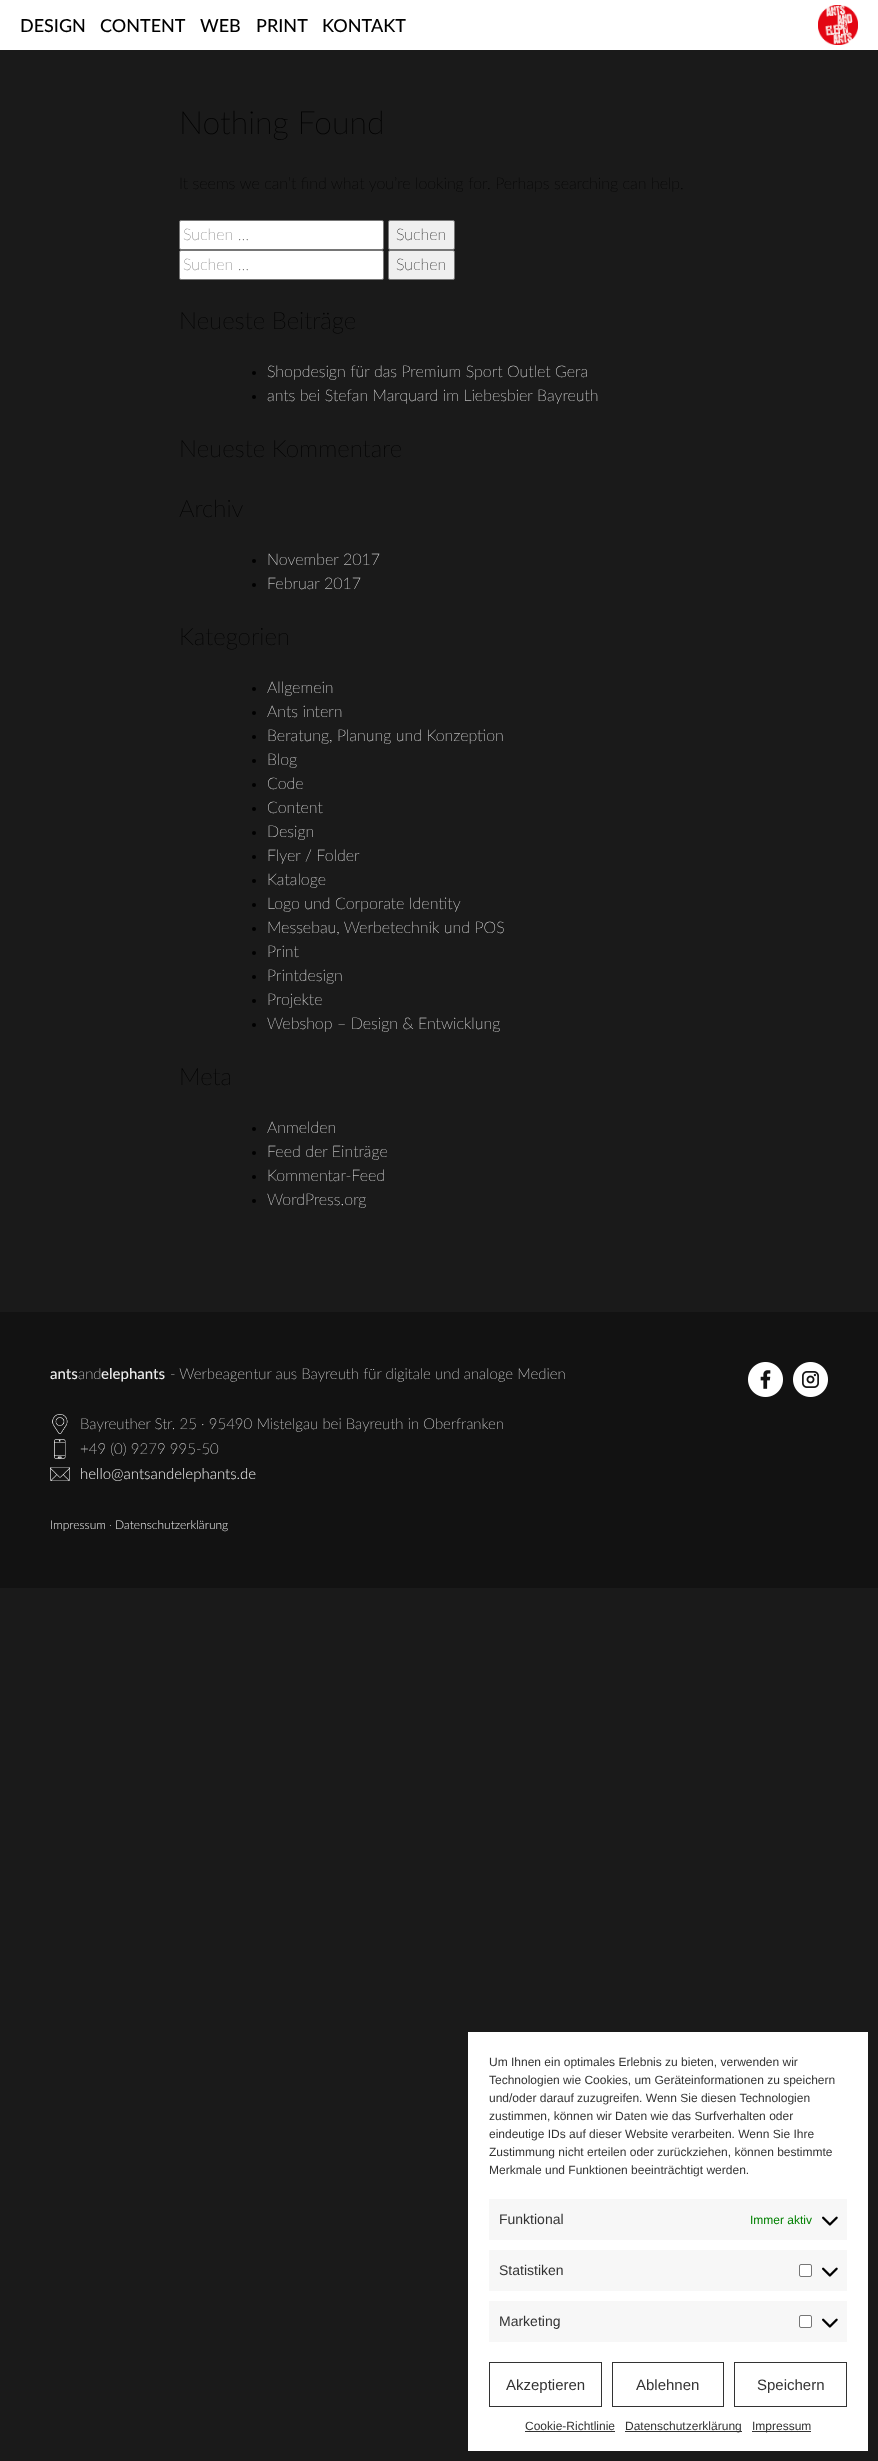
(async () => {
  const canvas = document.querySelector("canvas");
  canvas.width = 878;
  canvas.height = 2461;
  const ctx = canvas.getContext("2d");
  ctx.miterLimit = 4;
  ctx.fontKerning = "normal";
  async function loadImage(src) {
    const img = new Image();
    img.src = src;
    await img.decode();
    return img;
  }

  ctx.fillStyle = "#1a1a1a";
  ctx.fillRect(0, 0, 878, 2461);
  ctx.fillStyle = "#ffffff";
  ctx.fillRect(0, 0, 878, 50);
  ctx.drawImage(await loadImage("img/1.png"), 818, 5, 40, 40);
  ctx.beginPath();
  ctx.roundRect(179.5, 220.5, 204, 29, 1.5);
  ctx.fill();
  ctx.strokeStyle = "#767676";
  ctx.stroke();
  ctx.fillStyle = "#efefef";
  ctx.beginPath();
  ctx.roundRect(388.5, 220.5, 66, 29, 1.5);
  ctx.fill();
  ctx.stroke();
  ctx.fillStyle = "#ffffff";
  ctx.beginPath();
  ctx.roundRect(179.5, 250.5, 204, 29, 1.5);
  ctx.fill();
  ctx.stroke();
  ctx.fillStyle = "#efefef";
  ctx.beginPath();
  ctx.roundRect(388.5, 250.5, 66, 29, 1.5);
  ctx.fill();
  ctx.stroke();
  ctx.fillStyle = "#000000";
  ctx.beginPath();
  ctx.arc(254, 373, 2, 0, Math.PI * 2);
  ctx.fill();
  ctx.beginPath();
  ctx.arc(254, 397, 2, 0, Math.PI * 2);
  ctx.fill();
  ctx.beginPath();
  ctx.arc(254, 561, 2, 0, Math.PI * 2);
  ctx.fill();
  ctx.beginPath();
  ctx.arc(254, 585, 2, 0, Math.PI * 2);
  ctx.fill();
  ctx.beginPath();
  ctx.arc(254, 689, 2, 0, Math.PI * 2);
  ctx.fill();
  ctx.beginPath();
  ctx.arc(254, 713, 2, 0, Math.PI * 2);
  ctx.fill();
  ctx.beginPath();
  ctx.arc(254, 737, 2, 0, Math.PI * 2);
  ctx.fill();
  ctx.beginPath();
  ctx.arc(254, 761, 2, 0, Math.PI * 2);
  ctx.fill();
  ctx.beginPath();
  ctx.arc(254, 785, 2, 0, Math.PI * 2);
  ctx.fill();
  ctx.beginPath();
  ctx.arc(254, 809, 2, 0, Math.PI * 2);
  ctx.fill();
  ctx.beginPath();
  ctx.arc(254, 833, 2, 0, Math.PI * 2);
  ctx.fill();
  ctx.beginPath();
  ctx.arc(254, 857, 2, 0, Math.PI * 2);
  ctx.fill();
  ctx.beginPath();
  ctx.arc(254, 881, 2, 0, Math.PI * 2);
  ctx.fill();
  ctx.beginPath();
  ctx.arc(254, 905, 2, 0, Math.PI * 2);
  ctx.fill();
  ctx.beginPath();
  ctx.arc(254, 929, 2, 0, Math.PI * 2);
  ctx.fill();
  ctx.beginPath();
  ctx.arc(254, 953, 2, 0, Math.PI * 2);
  ctx.fill();
  ctx.beginPath();
  ctx.arc(254, 977, 2, 0, Math.PI * 2);
  ctx.fill();
  ctx.beginPath();
  ctx.arc(254, 1001, 2, 0, Math.PI * 2);
  ctx.fill();
  ctx.beginPath();
  ctx.arc(254, 1025, 2, 0, Math.PI * 2);
  ctx.fill();
  ctx.beginPath();
  ctx.arc(254, 1129, 2, 0, Math.PI * 2);
  ctx.fill();
  ctx.beginPath();
  ctx.arc(254, 1153, 2, 0, Math.PI * 2);
  ctx.fill();
  ctx.beginPath();
  ctx.arc(254, 1177, 2, 0, Math.PI * 2);
  ctx.fill();
  ctx.beginPath();
  ctx.arc(254, 1201, 2, 0, Math.PI * 2);
  ctx.fill();
  ctx.fillStyle = "#121212";
  ctx.fillRect(0, 1312, 878, 276);
  ctx.drawImage(await loadImage("img/2.png"), 52, 1414, 16, 20);
  ctx.drawImage(await loadImage("img/3.png"), 54, 1439, 12, 20);
  ctx.drawImage(await loadImage("img/4.png"), 50, 1467, 20, 14);
  ctx.drawImage(await loadImage("img/5.png"), 748, 1362, 35, 35);
  ctx.drawImage(await loadImage("img/6.png"), 793, 1362, 35, 35);
  ctx.fillStyle = "#ffffff";
  ctx.fillRect(468, 2032, 400, 419);
  ctx.fillStyle = "#f7f7f7";
  ctx.fillRect(489, 2199, 358, 41);
  ctx.drawImage(await loadImage("img/7.png"), 822, 2216, 16, 10);
  ctx.fillRect(489, 2250, 358, 41);
  ctx.fillStyle = "#ffffff";
  ctx.beginPath();
  ctx.roundRect(799.5, 2264.5, 12, 12, 1.5);
  ctx.fill();
  ctx.stroke();
  ctx.drawImage(await loadImage("img/7.png"), 822, 2267, 16, 10);
  ctx.fillStyle = "#f7f7f7";
  ctx.fillRect(489, 2301, 358, 41);
  ctx.fillStyle = "#ffffff";
  ctx.beginPath();
  ctx.roundRect(799.5, 2315.5, 12, 12, 1.5);
  ctx.fill();
  ctx.stroke();
  ctx.drawImage(await loadImage("img/7.png"), 822, 2318, 16, 10);
  ctx.strokeStyle = "#333333";
  ctx.strokeRect(489.5, 2362.5, 112, 44);
  ctx.strokeRect(612.5, 2362.5, 111, 44);
  ctx.strokeRect(734.5, 2362.5, 112, 44);
  for (const [x, y, w, h, color] of [
    [525, 2431, 90, 1, "#333333"],
    [625, 2431, 117, 1, "#333333"],
    [752, 2431, 59, 1, "#333333"],
  ]) {
    ctx.fillStyle = color;
    ctx.fillRect(x, y, w, h);
  }
  ctx.font = "500 18px Lato";
  ctx.fillStyle = "#000000";
  for (const [text, x, y] of [
    ["DESIGN", 20, 32],
    ["CONTENT", 100, 32],
    ["WEB", 200, 32],
    ["PRINT", 256, 32],
    ["KONTAKT", 322, 32],
  ]) {
    ctx.fillText(text, x, y);
  }
  ctx.font = "100 32px Lato";
  ctx.fillText("Nothing Found", 179, 134);
  ctx.font = "100 16px Lato";
  ctx.fillText("It seems we can’t find what you’re looking for. Perhaps searching can help.", 179, 189);
  ctx.fillStyle = "#757575";
  ctx.fillText("Suchen …", 183, 240);
  ctx.fillStyle = "#000000";
  ctx.fillText("Suchen", 396, 240);
  ctx.fillStyle = "#757575";
  ctx.fillText("Suchen …", 183, 270);
  ctx.fillStyle = "#000000";
  ctx.fillText("Suchen", 396, 270);
  ctx.font = "100 24px Lato";
  ctx.fillText("Neueste Beiträge", 179, 329);
  ctx.font = "100 16px Lato";
  ctx.fillStyle = "#eeeeee";
  ctx.fillText("Shopdesign für das Premium Sport Outlet Gera", 267, 377);
  ctx.fillText("ants bei Stefan Marquard im Liebesbier Bayreuth", 267, 401);
  ctx.font = "100 24px Lato";
  ctx.fillStyle = "#000000";
  ctx.fillText("Neueste Kommentare", 179, 457);
  ctx.fillText("Archiv", 179, 517);
  ctx.font = "100 16px Lato";
  ctx.fillStyle = "#eeeeee";
  ctx.fillText("November 2017", 267, 565);
  ctx.fillText("Februar 2017", 267, 589);
  ctx.font = "100 24px Lato";
  ctx.fillStyle = "#000000";
  ctx.fillText("Kategorien", 179, 645);
  ctx.font = "100 16px Lato";
  ctx.fillStyle = "#eeeeee";
  for (const [text, x, y] of [
    ["Allgemein", 267, 693],
    ["Ants intern", 267, 717],
    ["Beratung, Planung und Konzeption", 267, 741],
    ["Blog", 267, 765],
    ["Code", 267, 789],
    ["Content", 267, 813],
    ["Design", 267, 837],
    ["Flyer / Folder", 267, 861],
    ["Kataloge", 267, 885],
    ["Logo und Corporate Identity", 267, 909],
    ["Messebau, Werbetechnik und POS", 267, 933],
    ["Print", 267, 957],
    ["Printdesign", 267, 981],
    ["Projekte", 267, 1005],
    ["Webshop – Design & Entwicklung", 267, 1029],
  ]) {
    ctx.fillText(text, x, y);
  }
  ctx.font = "100 24px Lato";
  ctx.fillStyle = "#000000";
  ctx.fillText("Meta", 179, 1085);
  ctx.font = "100 16px Lato";
  ctx.fillStyle = "#eeeeee";
  for (const [text, x, y] of [
    ["Anmelden", 267, 1133],
    ["Feed der Einträge", 267, 1157],
    ["Kommentar-Feed", 267, 1181],
    ["WordPress.org", 267, 1205],
  ]) {
    ctx.fillText(text, x, y);
  }
  ctx.font = "500 15px Lato";
  ctx.fillText("ants", 50, 1379);
  ctx.font = "100 15px Lato";
  ctx.fillText("and", 78, 1379);
  ctx.font = "500 15px Lato";
  ctx.fillText("elephants", 101, 1379);
  ctx.font = "100 15px Lato";
  for (const [text, x, y] of [
    ["- Werbeagentur aus Bayreuth für digitale und analoge Medien", 170, 1379],
    ["Bayreuther Str. 25 · 95490 Mistelgau bei Bayreuth in Oberfranken", 80, 1429],
    ["+49 (0) 9279 995-50", 80, 1454],
  ]) {
    ctx.fillText(text, x, y);
  }
  ctx.font = "300 15px Lato";
  ctx.fillText("hello@antsandelephants.de", 80, 1479);
  ctx.font = "300 12px Lato";
  ctx.fillText("Impressum", 50, 1529);
  ctx.font = "100 12px Lato";
  ctx.fillText("·", 109, 1529);
  ctx.font = "300 12px Lato";
  ctx.fillText("Datenschutzerklärung", 115, 1529);
  ctx.font = "12px Liberation Sans";
  ctx.fillStyle = "#333333";
  for (const [text, x, y] of [
    ["Um Ihnen ein optimales Erlebnis zu bieten, verwenden wir", 489, 2066],
    ["Technologien wie Cookies, um Geräteinformationen zu speichern", 489, 2084],
    ["und/oder darauf zuzugreifen. Wenn Sie diesen Technologien", 489, 2102],
    ["zustimmen, können wir Daten wie das Surfverhalten oder", 489, 2120],
    ["eindeutige IDs auf dieser Website verarbeiten. Wenn Sie Ihre", 489, 2138],
    ["Zustimmung nicht erteilen oder zurückziehen, können bestimmte", 489, 2156],
    ["Merkmale und Funktionen beeinträchtigt werden.", 489, 2174],
  ]) {
    ctx.fillText(text, x, y);
  }
  ctx.font = "14px Liberation Sans";
  ctx.fillText("Funktional", 499, 2224);
  ctx.font = "12px Liberation Sans";
  ctx.fillStyle = "#008000";
  ctx.fillText("Immer aktiv", 750, 2224);
  ctx.font = "14px Liberation Sans";
  ctx.fillStyle = "#333333";
  ctx.fillText("Statistiken", 499, 2275);
  ctx.fillText("Marketing", 499, 2326);
  ctx.font = "15px Liberation Sans";
  for (const [text, x, y] of [
    ["Akzeptieren", 506, 2390],
    ["Ablehnen", 636, 2390],
    ["Speichern", 757, 2390],
  ]) {
    ctx.fillText(text, x, y);
  }
  ctx.font = "12px Liberation Sans";
  for (const [text, x, y] of [
    ["Cookie-Richtlinie", 525, 2430],
    ["Datenschutzerklärung", 625, 2430],
    ["Impressum", 752, 2430],
  ]) {
    ctx.fillText(text, x, y);
  }
})();
